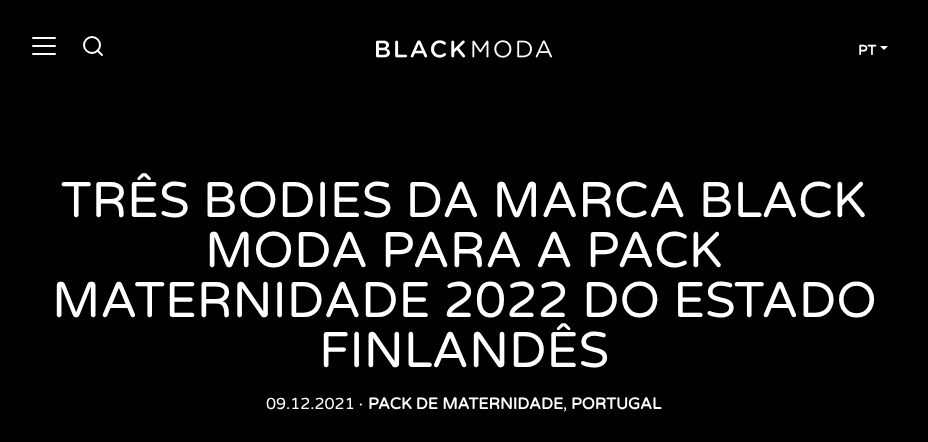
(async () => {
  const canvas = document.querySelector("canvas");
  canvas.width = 928;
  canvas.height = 442;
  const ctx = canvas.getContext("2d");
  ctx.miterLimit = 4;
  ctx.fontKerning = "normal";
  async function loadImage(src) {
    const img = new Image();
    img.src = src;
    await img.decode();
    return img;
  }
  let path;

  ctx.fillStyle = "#000000";
  ctx.fillRect(0, 0, 928, 442);
  ctx.fillStyle = "#ffffff";
  ctx.beginPath();
  ctx.roundRect(32, 45, 24, 2, 1);
  ctx.fill();
  ctx.beginPath();
  ctx.roundRect(32, 37, 24, 2, 1);
  ctx.fill();
  ctx.beginPath();
  ctx.roundRect(32, 53, 24, 2, 1);
  ctx.fill();
  ctx.beginPath();
  ctx.arc(92, 45, 8, 0, Math.PI * 2);
  ctx.strokeStyle = "#ffffff";
  ctx.lineWidth = 2;
  ctx.stroke();
  path = new Path2D("M102 55L97.5 50.5");
  ctx.lineCap = "round";
  ctx.lineJoin = "round";
  ctx.stroke(path);
  ctx.drawImage(await loadImage("img/1.png"), 376, 40, 176, 18);
  path = new Path2D("M880 46H888L884 50Z");
  ctx.fill(path);
  ctx.font = "bold 14px Varela Round";
  ctx.fillText("PT", 858, 55);
  ctx.font = "50px Varela Round";
  for (const [text, x, y] of [
    ["TRÊS BODIES DA MARCA BLACK", 61, 217],
    ["MODA PARA A PACK", 205, 267],
    ["MATERNIDADE 2022 DO ESTADO", 52, 317],
    ["FINLANDÊS", 319, 367],
  ]) {
    ctx.fillText(text, x, y);
  }
  ctx.font = "16px Varela Round";
  ctx.fillText("09.12.2021 ·", 266, 409);
  ctx.font = "bold 16px Varela Round";
  ctx.fillText("PACK DE MATERNIDADE", 368, 409);
  ctx.font = "16px Varela Round";
  ctx.fillText(",", 563, 409);
  ctx.font = "bold 16px Varela Round";
  ctx.fillText("PORTUGAL", 571, 409);
})();
